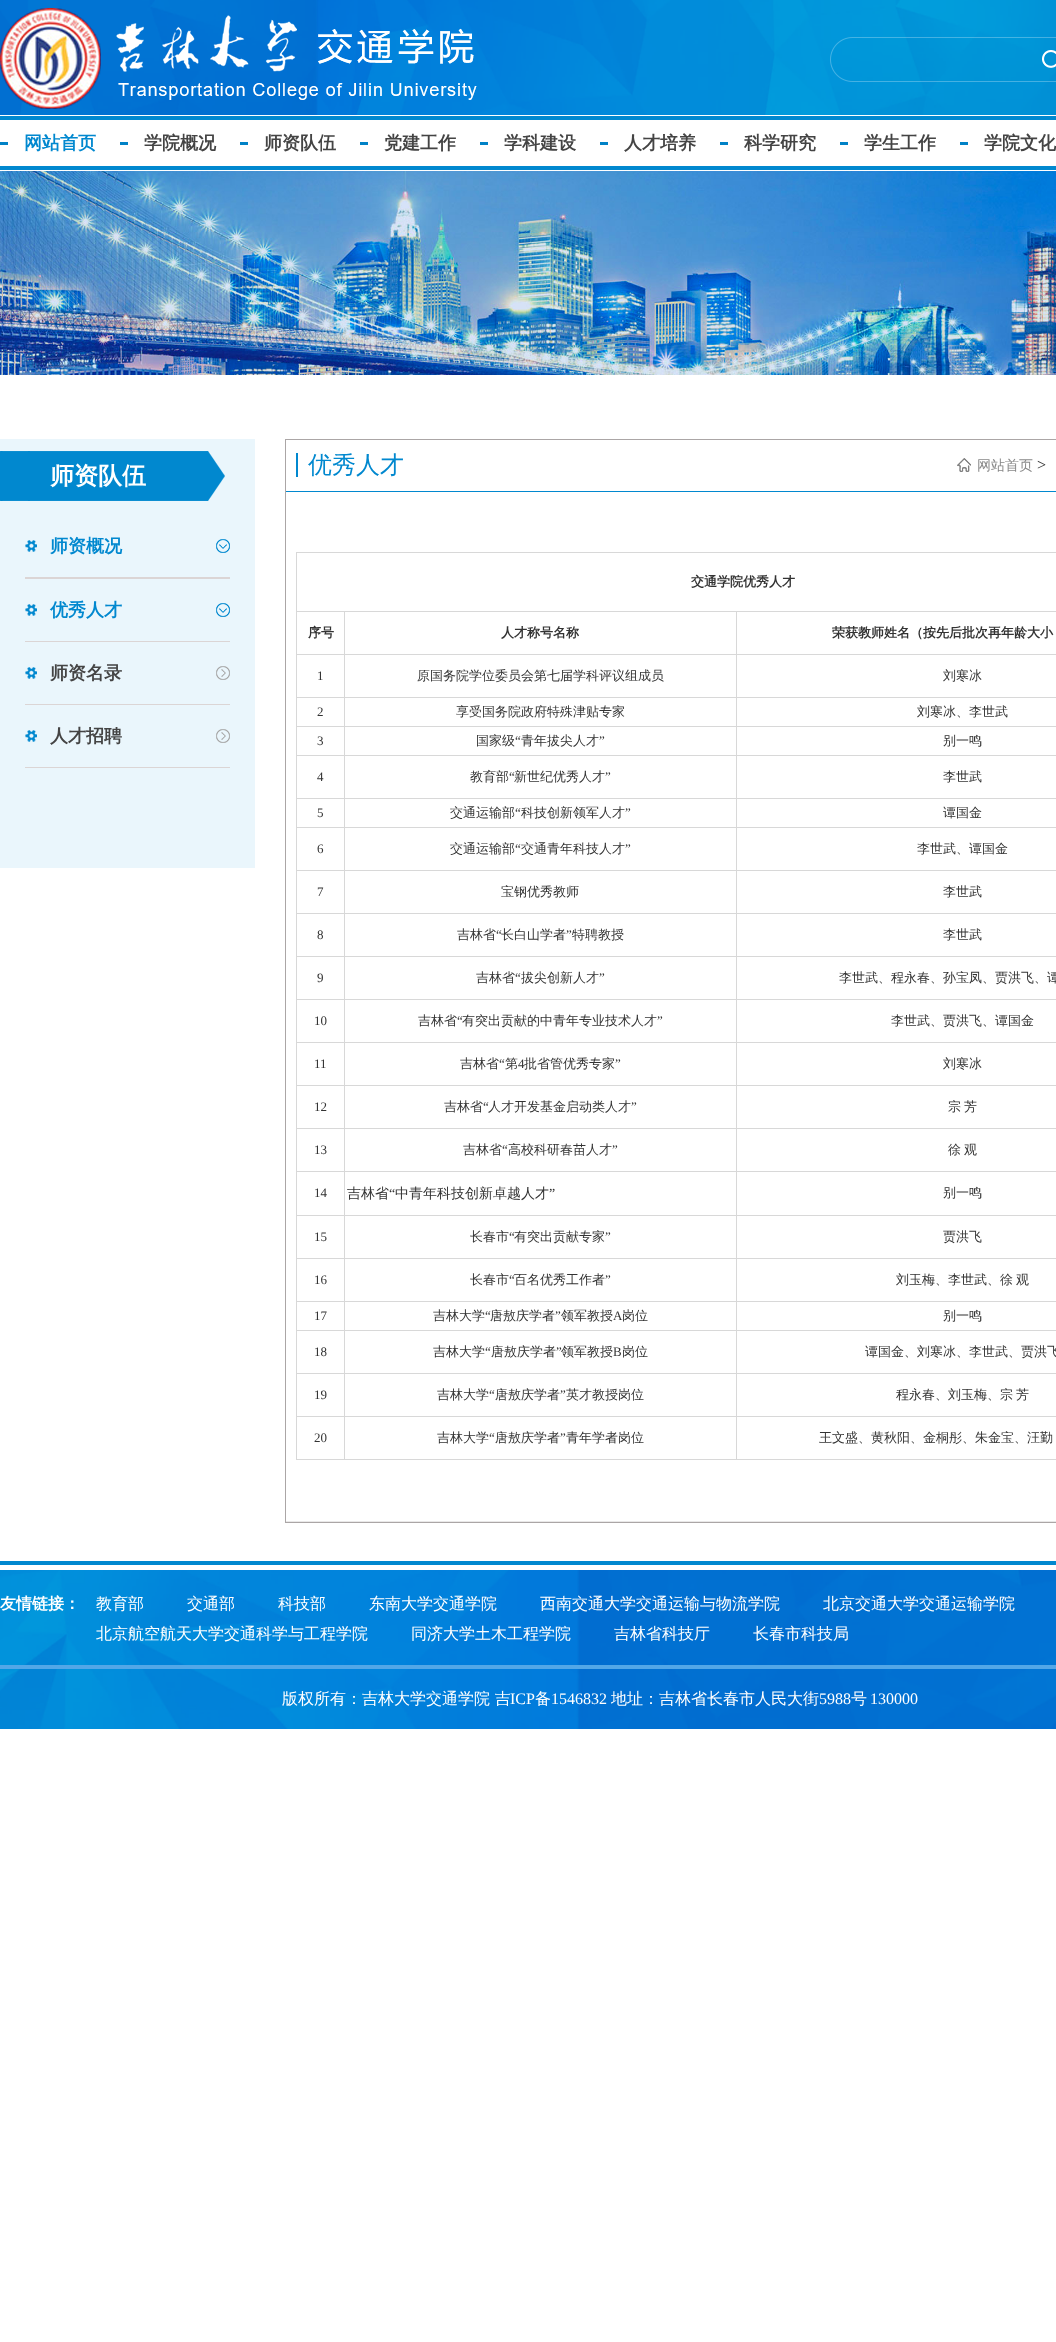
(async () => {
  const canvas = document.querySelector("canvas");
  canvas.width = 1056;
  canvas.height = 2342;
  const ctx = canvas.getContext("2d");
  ctx.miterLimit = 4;
  ctx.fontKerning = "normal";
  async function loadImage(src) {
    const img = new Image();
    img.src = src;
    await img.decode();
    return img;
  }

  ctx.fillStyle = "#ffffff";
  ctx.fillRect(0, 0, 1056, 2342);
  ctx.drawImage(await loadImage("img/1.png"), 0, 0, 1056, 115);
  ctx.drawImage(await loadImage("img/2.png"), 0, 8, 477, 101);
  ctx.drawImage(await loadImage("img/3.png"), 830, 37, 226, 45);
  ctx.drawImage(await loadImage("img/4.png"), 1042, 50, 14, 18);
  for (const [x, y, w, h, color] of [
    [0, 116, 1056, 4, "#0188cf"],
    [0, 166, 1056, 4, "#0188cf"],
    [0, 142, 8, 3, "#0182c6"],
    [120, 142, 8, 3, "#0182c6"],
    [240, 142, 8, 3, "#0182c6"],
    [360, 142, 8, 3, "#0182c6"],
    [480, 142, 8, 3, "#0182c6"],
    [600, 142, 8, 3, "#0182c6"],
    [720, 142, 8, 3, "#0182c6"],
    [840, 142, 8, 3, "#0182c6"],
    [960, 142, 8, 3, "#0182c6"],
  ]) {
    ctx.fillStyle = color;
    ctx.fillRect(x, y, w, h);
  }
  ctx.drawImage(await loadImage("img/5.png"), 0, 171, 1056, 204);
  ctx.fillStyle = "#0188cf";
  ctx.fillRect(0, 1561, 1056, 4);
  ctx.fillStyle = "#eaf6fc";
  ctx.fillRect(0, 439, 255, 429);
  ctx.drawImage(await loadImage("img/6.png"), 0, 451, 225, 50);
  ctx.drawImage(await loadImage("img/7.png"), 25, 540, 12, 12);
  ctx.drawImage(await loadImage("img/8.png"), 216, 539, 14, 14);
  ctx.fillStyle = "#dbd5d5";
  ctx.fillRect(25, 577, 205, 2);
  ctx.drawImage(await loadImage("img/7.png"), 25, 604, 12, 12);
  ctx.drawImage(await loadImage("img/8.png"), 216, 603, 14, 14);
  ctx.fillRect(25, 641, 205, 1);
  ctx.drawImage(await loadImage("img/7.png"), 25, 667, 12, 12);
  ctx.drawImage(await loadImage("img/9.png"), 216, 666, 14, 14);
  ctx.fillRect(25, 704, 205, 1);
  ctx.drawImage(await loadImage("img/7.png"), 25, 730, 12, 12);
  ctx.drawImage(await loadImage("img/9.png"), 216, 729, 14, 14);
  ctx.fillRect(25, 767, 205, 1);
  ctx.strokeStyle = "#aba6a6";
  ctx.strokeRect(285.5, 439.5, 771, 1083);
  ctx.fillStyle = "#0188cf";
  ctx.fillRect(286, 491, 770, 1);
  ctx.fillRect(296, 453, 2, 24);
  ctx.drawImage(await loadImage("img/10.png"), 957, 458, 14, 14);
  for (const [x, y, w, h, color] of [
    [286, 1521, 770, 1, "#e9e8e8"],
    [296, 552, 760, 1, "#d8d8d8"],
    [736, 611, 320, 1, "#d8d8d8"],
    [736, 654, 320, 1, "#d8d8d8"],
    [736, 697, 320, 1, "#d8d8d8"],
    [736, 726, 320, 1, "#d8d8d8"],
    [736, 755, 320, 1, "#d8d8d8"],
    [736, 798, 320, 1, "#d8d8d8"],
    [736, 827, 320, 1, "#d8d8d8"],
    [736, 870, 320, 1, "#d8d8d8"],
    [736, 913, 320, 1, "#d8d8d8"],
    [736, 956, 320, 1, "#d8d8d8"],
    [736, 999, 320, 1, "#d8d8d8"],
    [736, 1042, 320, 1, "#d8d8d8"],
    [736, 1085, 320, 1, "#d8d8d8"],
    [736, 1128, 320, 1, "#d8d8d8"],
    [736, 1171, 320, 1, "#d8d8d8"],
    [736, 1215, 320, 1, "#d8d8d8"],
    [736, 1258, 320, 1, "#d8d8d8"],
    [736, 1301, 320, 1, "#d8d8d8"],
    [736, 1330, 320, 1, "#d8d8d8"],
    [736, 1373, 320, 1, "#d8d8d8"],
    [736, 1416, 320, 1, "#d8d8d8"],
    [736, 1459, 320, 1, "#d8d8d8"],
    [736, 1416, 1, 44, "#d8d8d8"],
    [344, 1416, 393, 1, "#d8d8d8"],
    [736, 1373, 1, 44, "#d8d8d8"],
    [344, 1373, 393, 1, "#d8d8d8"],
    [736, 1330, 1, 44, "#d8d8d8"],
    [344, 1330, 393, 1, "#d8d8d8"],
    [736, 1301, 1, 30, "#d8d8d8"],
    [344, 1301, 393, 1, "#d8d8d8"],
    [736, 1258, 1, 44, "#d8d8d8"],
    [344, 1258, 393, 1, "#d8d8d8"],
    [736, 1215, 1, 44, "#d8d8d8"],
    [344, 1215, 393, 1, "#d8d8d8"],
    [736, 1171, 1, 45, "#d8d8d8"],
    [344, 1171, 393, 1, "#d8d8d8"],
    [736, 1128, 1, 44, "#d8d8d8"],
    [344, 1128, 393, 1, "#d8d8d8"],
    [736, 1085, 1, 44, "#d8d8d8"],
    [344, 1085, 393, 1, "#d8d8d8"],
    [736, 1042, 1, 44, "#d8d8d8"],
    [344, 1042, 393, 1, "#d8d8d8"],
    [736, 999, 1, 44, "#d8d8d8"],
    [344, 999, 393, 1, "#d8d8d8"],
    [736, 956, 1, 44, "#d8d8d8"],
    [344, 956, 393, 1, "#d8d8d8"],
    [736, 913, 1, 44, "#d8d8d8"],
    [344, 913, 393, 1, "#d8d8d8"],
    [736, 870, 1, 44, "#d8d8d8"],
    [344, 870, 393, 1, "#d8d8d8"],
    [736, 827, 1, 44, "#d8d8d8"],
    [344, 827, 393, 1, "#d8d8d8"],
    [736, 798, 1, 30, "#d8d8d8"],
    [344, 798, 393, 1, "#d8d8d8"],
    [736, 755, 1, 44, "#d8d8d8"],
    [344, 755, 393, 1, "#d8d8d8"],
    [736, 726, 1, 30, "#d8d8d8"],
    [344, 726, 393, 1, "#d8d8d8"],
    [736, 697, 1, 30, "#d8d8d8"],
    [344, 697, 393, 1, "#d8d8d8"],
    [736, 654, 1, 44, "#d8d8d8"],
    [344, 654, 393, 1, "#d8d8d8"],
    [736, 611, 1, 44, "#d8d8d8"],
    [344, 611, 393, 1, "#d8d8d8"],
    [344, 1459, 393, 1, "#d8d8d8"],
    [344, 1416, 1, 44, "#d8d8d8"],
    [296, 1416, 49, 1, "#d8d8d8"],
    [344, 1373, 1, 44, "#d8d8d8"],
    [296, 1373, 49, 1, "#d8d8d8"],
    [344, 1330, 1, 44, "#d8d8d8"],
    [296, 1330, 49, 1, "#d8d8d8"],
    [344, 1301, 1, 30, "#d8d8d8"],
    [296, 1301, 49, 1, "#d8d8d8"],
    [344, 1258, 1, 44, "#d8d8d8"],
    [296, 1258, 49, 1, "#d8d8d8"],
    [344, 1215, 1, 44, "#d8d8d8"],
    [296, 1215, 49, 1, "#d8d8d8"],
    [344, 1171, 1, 45, "#d8d8d8"],
    [296, 1171, 49, 1, "#d8d8d8"],
    [344, 1128, 1, 44, "#d8d8d8"],
    [296, 1128, 49, 1, "#d8d8d8"],
    [344, 1085, 1, 44, "#d8d8d8"],
    [296, 1085, 49, 1, "#d8d8d8"],
    [344, 1042, 1, 44, "#d8d8d8"],
    [296, 1042, 49, 1, "#d8d8d8"],
    [344, 999, 1, 44, "#d8d8d8"],
    [296, 999, 49, 1, "#d8d8d8"],
    [344, 956, 1, 44, "#d8d8d8"],
    [296, 956, 49, 1, "#d8d8d8"],
    [344, 913, 1, 44, "#d8d8d8"],
    [296, 913, 49, 1, "#d8d8d8"],
    [344, 870, 1, 44, "#d8d8d8"],
    [296, 870, 49, 1, "#d8d8d8"],
    [344, 827, 1, 44, "#d8d8d8"],
    [296, 827, 49, 1, "#d8d8d8"],
    [344, 798, 1, 30, "#d8d8d8"],
    [296, 798, 49, 1, "#d8d8d8"],
    [344, 755, 1, 44, "#d8d8d8"],
    [296, 755, 49, 1, "#d8d8d8"],
    [344, 726, 1, 30, "#d8d8d8"],
    [296, 726, 49, 1, "#d8d8d8"],
    [344, 697, 1, 30, "#d8d8d8"],
    [296, 697, 49, 1, "#d8d8d8"],
    [344, 654, 1, 44, "#d8d8d8"],
    [296, 654, 49, 1, "#d8d8d8"],
    [344, 611, 1, 44, "#d8d8d8"],
    [296, 611, 49, 1, "#d8d8d8"],
    [296, 1459, 49, 1, "#d8d8d8"],
    [296, 1416, 1, 44, "#d8d8d8"],
    [296, 1373, 1, 44, "#d8d8d8"],
    [296, 1330, 1, 44, "#d8d8d8"],
    [296, 1301, 1, 30, "#d8d8d8"],
    [296, 1258, 1, 44, "#d8d8d8"],
    [296, 1215, 1, 44, "#d8d8d8"],
    [296, 1171, 1, 45, "#d8d8d8"],
    [296, 1128, 1, 44, "#d8d8d8"],
    [296, 1085, 1, 44, "#d8d8d8"],
    [296, 1042, 1, 44, "#d8d8d8"],
    [296, 999, 1, 44, "#d8d8d8"],
    [296, 956, 1, 44, "#d8d8d8"],
    [296, 913, 1, 44, "#d8d8d8"],
    [296, 870, 1, 44, "#d8d8d8"],
    [296, 827, 1, 44, "#d8d8d8"],
    [296, 798, 1, 30, "#d8d8d8"],
    [296, 755, 1, 44, "#d8d8d8"],
    [296, 726, 1, 30, "#d8d8d8"],
    [296, 697, 1, 30, "#d8d8d8"],
    [296, 654, 1, 44, "#d8d8d8"],
    [296, 611, 1, 44, "#d8d8d8"],
    [296, 552, 1, 60, "#d8d8d8"],
  ]) {
    ctx.fillStyle = color;
    ctx.fillRect(x, y, w, h);
  }
  ctx.drawImage(await loadImage("img/11.png"), 0, 1570, 1056, 159);
  ctx.fillStyle = "#53a7e7";
  ctx.fillRect(0, 1665, 1056, 4);
  ctx.font = "bold 18px WenQuanYi Zen Hei";
  ctx.fillStyle = "#0188cf";
  ctx.fillText("网站首页", 24, 149);
  ctx.fillStyle = "#444444";
  for (const [text, x, y] of [
    ["学院概况", 144, 149],
    ["师资队伍", 264, 149],
    ["党建工作", 384, 149],
    ["学科建设", 504, 149],
    ["人才培养", 624, 149],
    ["科学研究", 744, 149],
    ["学生工作", 864, 149],
    ["学院文化", 984, 149],
  ]) {
    ctx.fillText(text, x, y);
  }
  ctx.font = "bold 24px WenQuanYi Zen Hei";
  ctx.fillStyle = "#ffffff";
  ctx.fillText("师资队伍", 50, 484);
  ctx.font = "bold 18px WenQuanYi Zen Hei";
  ctx.fillStyle = "#0188cf";
  ctx.fillText("师资概况", 50, 552);
  ctx.fillText("优秀人才", 50, 616);
  ctx.fillStyle = "#444444";
  ctx.fillText("师资名录", 50, 679);
  ctx.fillText("人才招聘", 50, 742);
  ctx.font = "500 24px WenQuanYi Zen Hei";
  ctx.fillStyle = "#0188cf";
  ctx.fillText("优秀人才", 308, 473);
  ctx.font = "500 14px WenQuanYi Zen Hei";
  ctx.fillStyle = "#888888";
  ctx.fillText("网站首页", 977, 470);
  ctx.font = "16px Liberation Serif";
  ctx.fillStyle = "#333333";
  ctx.fillText(">", 1037, 470);
  ctx.font = "bold 13px WenQuanYi Zen Hei";
  for (const [text, x, y] of [
    ["交通学院优秀人才", 691, 586],
    ["序号", 308, 637],
    ["人才称号名称", 501, 637],
    ["荣获教师姓名（按先后批次再年龄大小", 832, 637],
  ]) {
    ctx.fillText(text, x, y);
  }
  ctx.font = "13px Liberation Serif";
  ctx.fillText("1", 317, 680);
  ctx.font = "500 13px WenQuanYi Zen Hei";
  ctx.fillText("原国务院学位委员会第七届学科评议组成员", 417, 680);
  ctx.fillText("刘寒冰", 943, 680);
  ctx.font = "13px Liberation Serif";
  ctx.fillText("2", 317, 716);
  ctx.font = "500 13px WenQuanYi Zen Hei";
  ctx.fillText("享受国务院政府特殊津贴专家", 456, 716);
  ctx.fillText("刘寒冰、李世武", 917, 716);
  ctx.font = "13px Liberation Serif";
  ctx.fillText("3", 317, 745);
  ctx.font = "500 13px WenQuanYi Zen Hei";
  ctx.fillText("国家级", 476, 745);
  ctx.font = "13px Liberation Serif";
  ctx.fillText("“", 515, 745);
  ctx.font = "500 13px WenQuanYi Zen Hei";
  ctx.fillText("青年拔尖人才", 521, 745);
  ctx.font = "13px Liberation Serif";
  ctx.fillText("”", 599, 745);
  ctx.font = "500 13px WenQuanYi Zen Hei";
  ctx.fillText("别一鸣", 943, 745);
  ctx.font = "13px Liberation Serif";
  ctx.fillText("4", 317, 781);
  ctx.font = "500 13px WenQuanYi Zen Hei";
  ctx.fillText("教育部", 470, 781);
  ctx.font = "13px Liberation Serif";
  ctx.fillText("“", 509, 781);
  ctx.font = "500 13px WenQuanYi Zen Hei";
  ctx.fillText("新世纪优秀人才", 514, 781);
  ctx.font = "13px Liberation Serif";
  ctx.fillText("”", 605, 781);
  ctx.font = "500 13px WenQuanYi Zen Hei";
  ctx.fillText("李世武", 943, 781);
  ctx.font = "13px Liberation Serif";
  ctx.fillText("5", 317, 817);
  ctx.font = "500 13px WenQuanYi Zen Hei";
  ctx.fillText("交通运输部", 450, 817);
  ctx.font = "13px Liberation Serif";
  ctx.fillText("“", 515, 817);
  ctx.font = "500 13px WenQuanYi Zen Hei";
  ctx.fillText("科技创新领军人才", 521, 817);
  ctx.font = "13px Liberation Serif";
  ctx.fillText("”", 625, 817);
  ctx.font = "500 13px WenQuanYi Zen Hei";
  ctx.fillText("谭国金", 943, 817);
  ctx.font = "13px Liberation Serif";
  ctx.fillText("6", 317, 853);
  ctx.font = "500 13px WenQuanYi Zen Hei";
  ctx.fillText("交通运输部", 450, 853);
  ctx.font = "13px Liberation Serif";
  ctx.fillText("“", 515, 853);
  ctx.font = "500 13px WenQuanYi Zen Hei";
  ctx.fillText("交通青年科技人才", 521, 853);
  ctx.font = "13px Liberation Serif";
  ctx.fillText("”", 625, 853);
  ctx.font = "500 13px WenQuanYi Zen Hei";
  ctx.fillText("李世武、谭国金", 917, 853);
  ctx.font = "13px Liberation Serif";
  ctx.fillText("7", 317, 896);
  ctx.font = "500 13px WenQuanYi Zen Hei";
  ctx.fillText("宝钢优秀教师", 501, 896);
  ctx.fillText("李世武", 943, 896);
  ctx.font = "13px Liberation Serif";
  ctx.fillText("8", 317, 939);
  ctx.font = "500 13px WenQuanYi Zen Hei";
  ctx.fillText("吉林省", 457, 939);
  ctx.font = "13px Liberation Serif";
  ctx.fillText("“", 496, 939);
  ctx.font = "500 13px WenQuanYi Zen Hei";
  ctx.fillText("长白山学者", 501, 939);
  ctx.font = "13px Liberation Serif";
  ctx.fillText("”", 566, 939);
  ctx.font = "500 13px WenQuanYi Zen Hei";
  ctx.fillText("特聘教授", 572, 939);
  ctx.fillText("李世武", 943, 939);
  ctx.font = "13px Liberation Serif";
  ctx.fillText("9", 317, 982);
  ctx.font = "500 13px WenQuanYi Zen Hei";
  ctx.fillText("吉林省", 476, 982);
  ctx.font = "13px Liberation Serif";
  ctx.fillText("“", 515, 982);
  ctx.font = "500 13px WenQuanYi Zen Hei";
  ctx.fillText("拔尖创新人才", 521, 982);
  ctx.font = "13px Liberation Serif";
  ctx.fillText("”", 599, 982);
  ctx.font = "500 13px WenQuanYi Zen Hei";
  ctx.fillText("李世武、程永春、孙宝凤、贾洪飞、谭", 839, 982);
  ctx.font = "13px Liberation Serif";
  ctx.fillText("10", 314, 1025);
  ctx.font = "500 13px WenQuanYi Zen Hei";
  ctx.fillText("吉林省", 418, 1025);
  ctx.font = "13px Liberation Serif";
  ctx.fillText("“", 457, 1025);
  ctx.font = "500 13px WenQuanYi Zen Hei";
  ctx.fillText("有突出贡献的中青年专业技术人才", 462, 1025);
  ctx.font = "13px Liberation Serif";
  ctx.fillText("”", 657, 1025);
  ctx.font = "500 13px WenQuanYi Zen Hei";
  ctx.fillText("李世武、贾洪飞、谭国金", 891, 1025);
  ctx.font = "13px Liberation Serif";
  ctx.fillText("11", 314, 1068);
  ctx.font = "500 13px WenQuanYi Zen Hei";
  ctx.fillText("吉林省", 460, 1068);
  ctx.font = "13px Liberation Serif";
  ctx.fillText("“", 499, 1068);
  ctx.font = "500 13px WenQuanYi Zen Hei";
  ctx.fillText("第", 505, 1068);
  ctx.font = "13px Liberation Serif";
  ctx.fillText("4", 518, 1068);
  ctx.font = "500 13px WenQuanYi Zen Hei";
  ctx.fillText("批省管优秀专家", 524, 1068);
  ctx.font = "13px Liberation Serif";
  ctx.fillText("”", 615, 1068);
  ctx.font = "500 13px WenQuanYi Zen Hei";
  ctx.fillText("刘寒冰", 943, 1068);
  ctx.font = "13px Liberation Serif";
  ctx.fillText("12", 314, 1111);
  ctx.font = "500 13px WenQuanYi Zen Hei";
  ctx.fillText("吉林省", 444, 1111);
  ctx.font = "13px Liberation Serif";
  ctx.fillText("“", 483, 1111);
  ctx.font = "500 13px WenQuanYi Zen Hei";
  ctx.fillText("人才开发基金启动类人才", 488, 1111);
  ctx.font = "13px Liberation Serif";
  ctx.fillText("”", 631, 1111);
  ctx.wordSpacing = "-1px";
  ctx.font = "500 13px WenQuanYi Zen Hei";
  ctx.fillText("宗 芳", 948, 1111);
  ctx.wordSpacing = "0px";
  ctx.font = "13px Liberation Serif";
  ctx.fillText("13", 314, 1154);
  ctx.font = "500 13px WenQuanYi Zen Hei";
  ctx.fillText("吉林省", 463, 1154);
  ctx.font = "13px Liberation Serif";
  ctx.fillText("“", 502, 1154);
  ctx.font = "500 13px WenQuanYi Zen Hei";
  ctx.fillText("高校科研春苗人才", 508, 1154);
  ctx.font = "13px Liberation Serif";
  ctx.fillText("”", 612, 1154);
  ctx.wordSpacing = "-1px";
  ctx.font = "500 13px WenQuanYi Zen Hei";
  ctx.fillText("徐 观", 948, 1154);
  ctx.wordSpacing = "0px";
  ctx.font = "13px Liberation Serif";
  ctx.fillText("14", 314, 1197);
  ctx.font = "500 14px WenQuanYi Zen Hei";
  ctx.fillText("吉林省", 347, 1198);
  ctx.font = "14px Liberation Serif";
  ctx.fillText("“", 389, 1198);
  ctx.font = "500 14px WenQuanYi Zen Hei";
  ctx.fillText("中青年科技创新卓越人才", 395, 1198);
  ctx.font = "14px Liberation Serif";
  ctx.fillText("”", 549, 1198);
  ctx.font = "500 13px WenQuanYi Zen Hei";
  ctx.fillText("别一鸣", 943, 1197);
  ctx.font = "13px Liberation Serif";
  ctx.fillText("15", 314, 1241);
  ctx.font = "500 13px WenQuanYi Zen Hei";
  ctx.fillText("长春市", 470, 1241);
  ctx.font = "13px Liberation Serif";
  ctx.fillText("“", 509, 1241);
  ctx.font = "500 13px WenQuanYi Zen Hei";
  ctx.fillText("有突出贡献专家", 514, 1241);
  ctx.font = "13px Liberation Serif";
  ctx.fillText("”", 605, 1241);
  ctx.font = "500 13px WenQuanYi Zen Hei";
  ctx.fillText("贾洪飞", 943, 1241);
  ctx.font = "13px Liberation Serif";
  ctx.fillText("16", 314, 1284);
  ctx.font = "500 13px WenQuanYi Zen Hei";
  ctx.fillText("长春市", 470, 1284);
  ctx.font = "13px Liberation Serif";
  ctx.fillText("“", 509, 1284);
  ctx.font = "500 13px WenQuanYi Zen Hei";
  ctx.fillText("百名优秀工作者", 514, 1284);
  ctx.font = "13px Liberation Serif";
  ctx.fillText("”", 605, 1284);
  ctx.wordSpacing = "-1px";
  ctx.font = "500 13px WenQuanYi Zen Hei";
  ctx.fillText("刘玉梅、李世武、徐 观", 896, 1284);
  ctx.wordSpacing = "0px";
  ctx.font = "13px Liberation Serif";
  ctx.fillText("17", 314, 1320);
  ctx.font = "500 13px WenQuanYi Zen Hei";
  ctx.fillText("吉林大学", 433, 1320);
  ctx.font = "13px Liberation Serif";
  ctx.fillText("“", 485, 1320);
  ctx.font = "500 13px WenQuanYi Zen Hei";
  ctx.fillText("唐敖庆学者", 490, 1320);
  ctx.font = "13px Liberation Serif";
  ctx.fillText("”", 555, 1320);
  ctx.font = "500 13px WenQuanYi Zen Hei";
  ctx.fillText("领军教授", 561, 1320);
  ctx.font = "13px Liberation Serif";
  ctx.fillText("A", 613, 1320);
  ctx.font = "500 13px WenQuanYi Zen Hei";
  ctx.fillText("岗位", 622, 1320);
  ctx.fillText("别一鸣", 943, 1320);
  ctx.font = "13px Liberation Serif";
  ctx.fillText("18", 314, 1356);
  ctx.font = "500 13px WenQuanYi Zen Hei";
  ctx.fillText("吉林大学", 433, 1356);
  ctx.font = "13px Liberation Serif";
  ctx.fillText("“", 485, 1356);
  ctx.font = "500 13px WenQuanYi Zen Hei";
  ctx.fillText("唐敖庆学者", 491, 1356);
  ctx.font = "13px Liberation Serif";
  ctx.fillText("”", 556, 1356);
  ctx.font = "500 13px WenQuanYi Zen Hei";
  ctx.fillText("领军教授", 561, 1356);
  ctx.font = "13px Liberation Serif";
  ctx.fillText("B", 613, 1356);
  ctx.font = "500 13px WenQuanYi Zen Hei";
  ctx.fillText("岗位", 622, 1356);
  ctx.fillText("谭国金、刘寒冰、李世武、贾洪飞", 865, 1356);
  ctx.font = "13px Liberation Serif";
  ctx.fillText("19", 314, 1399);
  ctx.font = "500 13px WenQuanYi Zen Hei";
  ctx.fillText("吉林大学", 437, 1399);
  ctx.font = "13px Liberation Serif";
  ctx.fillText("“", 489, 1399);
  ctx.font = "500 13px WenQuanYi Zen Hei";
  ctx.fillText("唐敖庆学者", 495, 1399);
  ctx.font = "13px Liberation Serif";
  ctx.fillText("”", 560, 1399);
  ctx.font = "500 13px WenQuanYi Zen Hei";
  ctx.fillText("英才教授岗位", 566, 1399);
  ctx.wordSpacing = "-1px";
  ctx.fillText("程永春、刘玉梅、宗 芳", 896, 1399);
  ctx.wordSpacing = "0px";
  ctx.font = "13px Liberation Serif";
  ctx.fillText("20", 314, 1442);
  ctx.font = "500 13px WenQuanYi Zen Hei";
  ctx.fillText("吉林大学", 437, 1442);
  ctx.font = "13px Liberation Serif";
  ctx.fillText("“", 489, 1442);
  ctx.font = "500 13px WenQuanYi Zen Hei";
  ctx.fillText("唐敖庆学者", 495, 1442);
  ctx.font = "13px Liberation Serif";
  ctx.fillText("”", 560, 1442);
  ctx.font = "500 13px WenQuanYi Zen Hei";
  ctx.fillText("青年学者岗位", 566, 1442);
  ctx.fillText("王文盛、黄秋阳、金桐彤、朱金宝、汪勤", 819, 1442);
  ctx.font = "bold 16px WenQuanYi Zen Hei";
  ctx.fillStyle = "#ffffff";
  ctx.fillText("友情链接：", 0, 1609);
  ctx.font = "500 16px WenQuanYi Zen Hei";
  for (const [text, x, y] of [
    ["教育部", 96, 1609],
    ["交通部", 187, 1609],
    ["科技部", 278, 1609],
    ["东南大学交通学院", 369, 1609],
    ["西南交通大学交通运输与物流学院", 540, 1609],
    ["北京交通大学交通运输学院", 823, 1609],
    ["北京航空航天大学交通科学与工程学院", 96, 1639],
    ["同济大学土木工程学院", 411, 1639],
    ["吉林省科技厅", 614, 1639],
    ["长春市科技局", 753, 1639],
    ["版权所有：吉林大学交通学院 吉", 282, 1704],
  ]) {
    ctx.fillText(text, x, y);
  }
  ctx.font = "16px Liberation Serif";
  ctx.fillText("ICP", 510, 1704);
  ctx.font = "500 16px WenQuanYi Zen Hei";
  ctx.fillText("备", 535, 1704);
  ctx.font = "16px Liberation Serif";
  ctx.fillText("1546832", 551, 1704);
  ctx.font = "500 16px WenQuanYi Zen Hei";
  ctx.fillText("地址：吉林省长春市人民大街", 611, 1704);
  ctx.font = "16px Liberation Serif";
  ctx.fillText("5988", 819, 1704);
  ctx.font = "500 16px WenQuanYi Zen Hei";
  ctx.fillText("号", 851, 1704);
  ctx.font = "16px Liberation Serif";
  ctx.fillText("130000", 870, 1704);
})();
